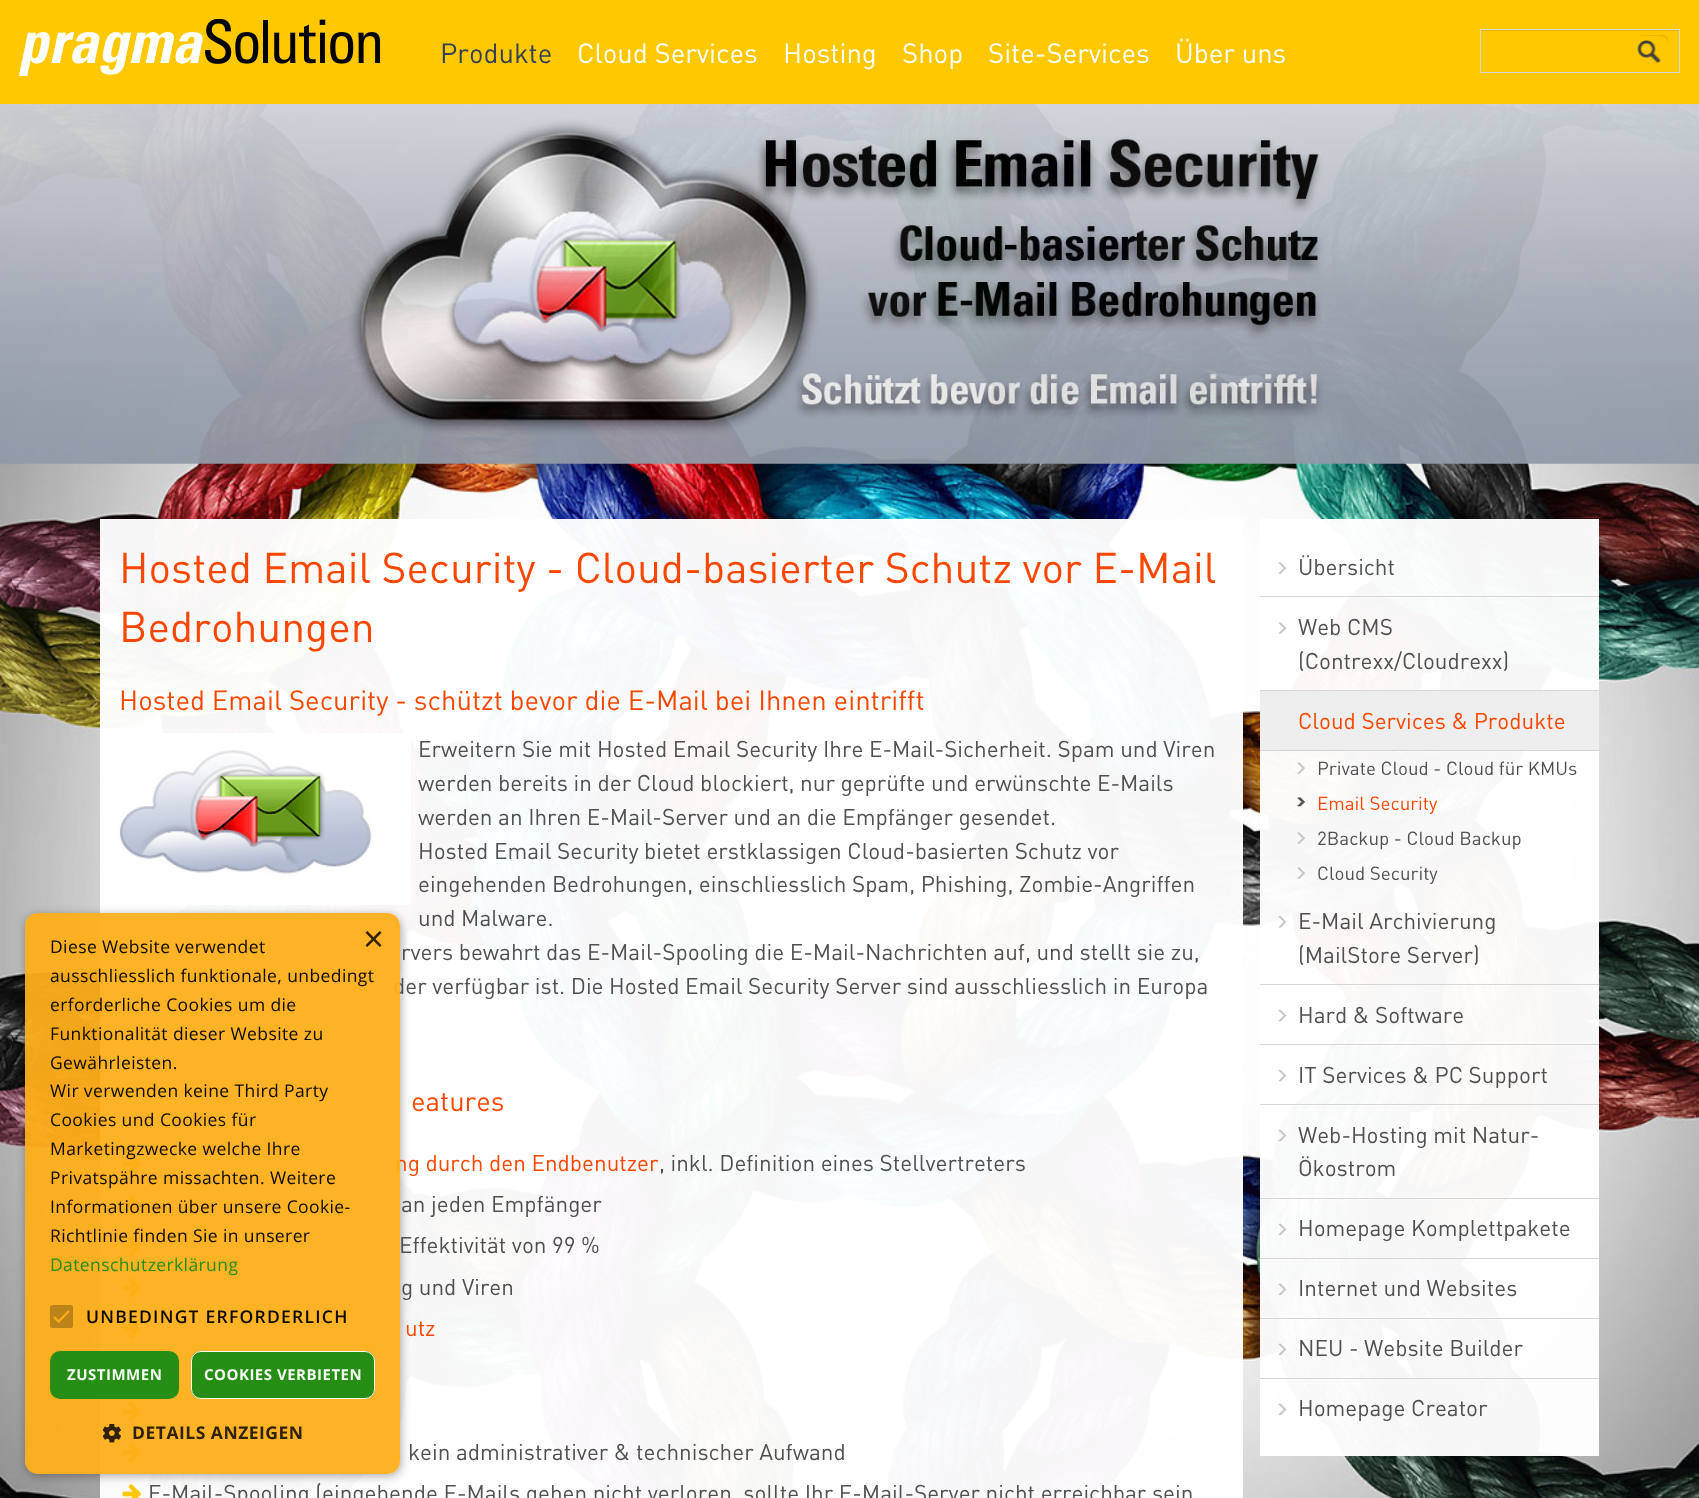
(async () => {
  const canvas = document.querySelector("canvas");
  canvas.width = 1699;
  canvas.height = 1498;
  const ctx = canvas.getContext("2d");
  ctx.miterLimit = 4;
  ctx.fontKerning = "normal";
  async function loadImage(src) {
    const img = new Image();
    img.src = src;
    await img.decode();
    return img;
  }
  let path;

  ctx.fillStyle = "#ffffff";
  ctx.fillRect(0, 0, 1699, 1498);
  ctx.fillStyle = "#ffc800";
  ctx.fillRect(0, 0, 1699, 104);
  ctx.drawImage(await loadImage("img/1.png"), 19, 19, 361, 57);
  ctx.fillStyle = "#ecb900";
  ctx.fillRect(1481, 30, 198, 1);
  ctx.strokeStyle = "#d6d6d6";
  ctx.strokeRect(1480.5, 29.5, 199, 43);
  ctx.drawImage(await loadImage("img/2.png"), 1637, 40, 24, 23);
  path = new Path2D("M1642 36H1654.5C1662.5 36 1667.5 36 1668 45V40C1668 37 1666 35 1663 35H1643C1641 35 1639.5 36 1638.5 38C1639 36.5 1640.5 36 1642 36ZM1668 61L1667.5 63Z");
  ctx.fill(path, "evenodd");
  ctx.drawImage(await loadImage("img/3.png"), 0, 104, 1699, 1394);
  ctx.drawImage(await loadImage("img/4.png"), 0, 104, 1699, 360);
  ctx.fillStyle = "rgba(255, 255, 255, 0.97)";
  ctx.fillRect(100, 519, 1143, 979);
  ctx.drawImage(await loadImage("img/5.png"), 119, 733, 292, 172);
  ctx.drawImage(await loadImage("img/6.png"), 122, 1154, 19, 20);
  ctx.drawImage(await loadImage("img/7.png"), 122, 1195, 19, 20);
  ctx.drawImage(await loadImage("img/8.png"), 122, 1236, 19, 21);
  ctx.drawImage(await loadImage("img/9.png"), 122, 1278, 19, 20);
  ctx.drawImage(await loadImage("img/10.png"), 122, 1319, 19, 20);
  ctx.drawImage(await loadImage("img/11.png"), 122, 1360, 19, 20);
  ctx.drawImage(await loadImage("img/12.png"), 122, 1401, 19, 21);
  ctx.drawImage(await loadImage("img/13.png"), 122, 1443, 19, 20);
  ctx.drawImage(await loadImage("img/14.png"), 122, 1484, 19, 14);
  ctx.fillRect(1260, 519, 339, 937);
  ctx.drawImage(await loadImage("img/15.png"), 1278, 562, 9, 12);
  ctx.fillStyle = "#d6d6d6";
  ctx.fillRect(1260, 596, 339, 1);
  ctx.drawImage(await loadImage("img/15.png"), 1278, 622, 9, 12);
  for (const [x, y, w, h, color] of [
    [1260, 690, 339, 1, "#d6d6d6"],
    [1260, 691, 339, 59, "#eeeeee"],
    [1260, 750, 339, 1, "#d6d6d6"],
  ]) {
    ctx.fillStyle = color;
    ctx.fillRect(x, y, w, h);
  }
  ctx.drawImage(await loadImage("img/16.png"), 1297, 762, 8, 12);
  ctx.drawImage(await loadImage("img/17.png"), 1297, 797, 8, 10);
  ctx.drawImage(await loadImage("img/18.png"), 1297, 832, 8, 12);
  ctx.drawImage(await loadImage("img/19.png"), 1297, 867, 8, 12);
  ctx.drawImage(await loadImage("img/20.png"), 1278, 916, 9, 12);
  ctx.fillRect(1260, 984, 339, 1);
  ctx.drawImage(await loadImage("img/21.png"), 1278, 1010, 9, 12);
  ctx.fillRect(1260, 1044, 339, 1);
  ctx.drawImage(await loadImage("img/21.png"), 1278, 1070, 9, 12);
  ctx.fillRect(1260, 1104, 339, 1);
  ctx.drawImage(await loadImage("img/22.png"), 1278, 1130, 9, 12);
  ctx.fillRect(1260, 1198, 339, 1);
  ctx.drawImage(await loadImage("img/23.png"), 1278, 1223, 9, 12);
  ctx.fillRect(1260, 1258, 339, 1);
  ctx.drawImage(await loadImage("img/24.png"), 1278, 1283, 9, 12);
  ctx.fillRect(1260, 1318, 339, 1);
  ctx.drawImage(await loadImage("img/25.png"), 1278, 1343, 9, 12);
  ctx.fillRect(1260, 1378, 339, 1);
  ctx.drawImage(await loadImage("img/26.png"), 1278, 1403, 9, 12);
  ctx.save();
  path = new Path2D("M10 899H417V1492H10ZM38 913H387C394 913 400 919 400 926V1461C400 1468 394 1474 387 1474H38C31 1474 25 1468 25 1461V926C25 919 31 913 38 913Z");
  ctx.clip(path, "evenodd");
  ctx.fillStyle = "rgba(0, 0, 0, 0.33)";
  ctx.filter = "blur(5px)";
  ctx.beginPath();
  ctx.roundRect(26, 915, 375, 561, 13);
  ctx.fill();
  ctx.filter = "none";
  ctx.restore();
  ctx.font = "27.5px DIN";
  ctx.fillStyle = "#323f55";
  ctx.fillText("Produkte", 440, 63);
  ctx.fillStyle = "#ffffff";
  for (const [text, x, y] of [
    ["Cloud Services", 577, 63],
    ["Hosting", 783, 63],
    ["Shop", 902, 63],
    ["Site-Services", 988, 63],
    ["Über uns", 1175, 63],
  ]) {
    ctx.fillText(text, x, y);
  }
  ctx.font = "42.5px DIN";
  ctx.fillStyle = "#fa4700";
  ctx.fillText("Hosted Email Security - Cloud-basierter Schutz vor E-Mail", 119, 583);
  ctx.fillText("Bedrohungen", 119, 642);
  ctx.font = "27.5px DIN";
  ctx.fillText("Hosted Email Security - schützt bevor die E-Mail bei Ihnen eintrifft", 119, 710);
  ctx.font = "22.5px DIN";
  ctx.fillStyle = "#505050";
  for (const [text, x, y] of [
    ["Erweitern Sie mit Hosted Email Security Ihre E-Mail-Sicherheit. Spam und Viren", 418, 757],
    ["werden bereits in der Cloud blockiert, nur geprüfte und erwünschte E-Mails", 418, 791],
    ["werden an Ihren E-Mail-Server und an die Empfänger gesendet.", 418, 825],
    ["Hosted Email Security bietet erstklassigen Cloud-basierten Schutz vor", 418, 859],
    ["eingehenden Bedrohungen, einschliesslich Spam, Phishing, Zombie-Angriffen", 418, 892],
    ["und Malware.", 418, 926],
    ["rvers bewahrt das E-Mail-Spooling die E-Mail-Nachrichten auf, und stellt sie zu,", 401, 960],
    ["der verfügbar ist. Die Hosted Email Security Server sind ausschliesslich in Europa", 393, 994],
  ]) {
    ctx.fillText(text, x, y);
  }
  ctx.font = "27.5px DIN";
  ctx.fillStyle = "#fa4700";
  ctx.fillText("eatures", 411, 1111);
  ctx.font = "22.5px DIN";
  ctx.fillText("ng durch den Endbenutzer", 395, 1171);
  ctx.fillStyle = "#505050";
  for (const [text, x, y] of [
    [", inkl. Definition eines Stellvertreters", 659, 1171],
    ["an jeden Empfänger", 401, 1212],
    ["Effektivität von 99 %", 399, 1253],
    ["g und Viren", 401, 1295],
  ]) {
    ctx.fillText(text, x, y);
  }
  ctx.fillStyle = "#fa4700";
  ctx.fillText("utz", 405, 1336);
  ctx.fillStyle = "#505050";
  for (const [text, x, y] of [
    ["kein administrativer & technischer Aufwand", 408, 1460],
    ["E-Mail-Spooling (eingehende E-Mails gehen nicht verloren, sollte Ihr E-Mail-Server nicht erreichbar sein", 148, 1501],
    ["Übersicht", 1298, 575],
    ["Web CMS", 1298, 635],
    ["(Contrexx/Cloudrexx)", 1298, 669],
  ]) {
    ctx.fillText(text, x, y);
  }
  ctx.fillStyle = "#fa4700";
  ctx.fillText("Cloud Services & Produkte", 1298, 729);
  ctx.font = "18.75px DIN";
  ctx.fillStyle = "#505050";
  ctx.fillText("Private Cloud - Cloud für KMUs", 1317, 775);
  ctx.fillStyle = "#fa4700";
  ctx.fillText("Email Security", 1317, 810);
  ctx.fillStyle = "#505050";
  ctx.fillText("2Backup - Cloud Backup", 1317, 845);
  ctx.fillText("Cloud Security", 1317, 880);
  ctx.font = "22.5px DIN";
  for (const [text, x, y] of [
    ["E-Mail Archivierung", 1298, 929],
    ["(MailStore Server)", 1298, 963],
    ["Hard & Software", 1298, 1023],
    ["IT Services & PC Support", 1298, 1083],
    ["Web-Hosting mit Natur-", 1298, 1143],
    ["Ökostrom", 1298, 1176],
    ["Homepage Komplettpakete", 1298, 1236],
    ["Internet und Websites", 1298, 1296],
    ["NEU - Website Builder", 1298, 1356],
    ["Homepage Creator", 1298, 1416],
  ]) {
    ctx.fillText(text, x, y);
  }
  ctx.fillStyle = "rgba(254, 174, 25, 0.95)";
  ctx.beginPath();
  ctx.roundRect(25, 913, 375, 561, 13);
  ctx.fill();
  ctx.font = "36px Liberation Sans";
  ctx.fillStyle = "#312207";
  ctx.fillText("×", 363, 951);
  ctx.letterSpacing = "0.4px";
  ctx.font = "17.5px Open Sans";
  ctx.fillStyle = "#0d0902";
  for (const [text, x, y] of [
    ["Diese Website verwendet", 50, 953],
    ["ausschliesslich funktionale, unbedingt", 50, 982],
    ["erforderliche Cookies um die", 50, 1011],
    ["Funktionalität dieser Website zu", 50, 1040],
    ["Gewährleisten.", 50, 1069],
    ["Wir verwenden keine Third Party", 50, 1097],
    ["Cookies und Cookies für", 50, 1126],
    ["Marketingzwecke welche Ihre", 50, 1155],
    ["Privatspähre missachten. Weitere", 50, 1184],
    ["Informationen über unsere Cookie-", 50, 1213],
    ["Richtlinie finden Sie in unserer", 50, 1242],
  ]) {
    ctx.fillText(text, x, y);
  }
  ctx.fillStyle = "#258e15";
  ctx.fillText("Datenschutzerklärung", 50, 1271);
  ctx.fillStyle = "#bc8319";
  ctx.beginPath();
  ctx.roundRect(50, 1305, 23, 23, 2.5);
  ctx.fill();
  path = new Path2D("M54 1317L58.5 1321.5L69 1311");
  ctx.strokeStyle = "#fbac19";
  ctx.lineWidth = 2.3;
  ctx.stroke(path);
  ctx.letterSpacing = "1.25px";
  ctx.font = "600 17.5px Open Sans";
  ctx.fillStyle = "#0d0902";
  ctx.fillText("UNBEDINGT ERFORDERLICH", 86, 1323);
  ctx.fillStyle = "rgba(26, 140, 20, 0.95)";
  ctx.beginPath();
  ctx.roundRect(50, 1351, 129, 48, 10);
  ctx.fill();
  ctx.letterSpacing = "0.5px";
  ctx.font = "bold 15px Open Sans";
  ctx.fillStyle = "#f4f9f3";
  ctx.fillText("ZUSTIMMEN", 67, 1380);
  ctx.fillStyle = "rgba(26, 140, 20, 0.95)";
  ctx.beginPath();
  ctx.roundRect(191, 1351, 184, 48, 10);
  ctx.fill();
  ctx.beginPath();
  ctx.roundRect(191.5, 1351.5, 183, 47, 9.5);
  ctx.strokeStyle = "rgba(255, 255, 255, 0.95)";
  ctx.lineWidth = 1;
  ctx.stroke();
  ctx.fillStyle = "#f4f9f3";
  ctx.fillText("COOKIES VERBIETEN", 204, 1380);
  ctx.drawImage(await loadImage("img/27.png"), 103, 1424, 18, 19);
  ctx.font = "bold 17.5px Open Sans";
  ctx.fillStyle = "#312207";
  ctx.fillText("DETAILS ANZEIGEN", 132, 1439);
})();
